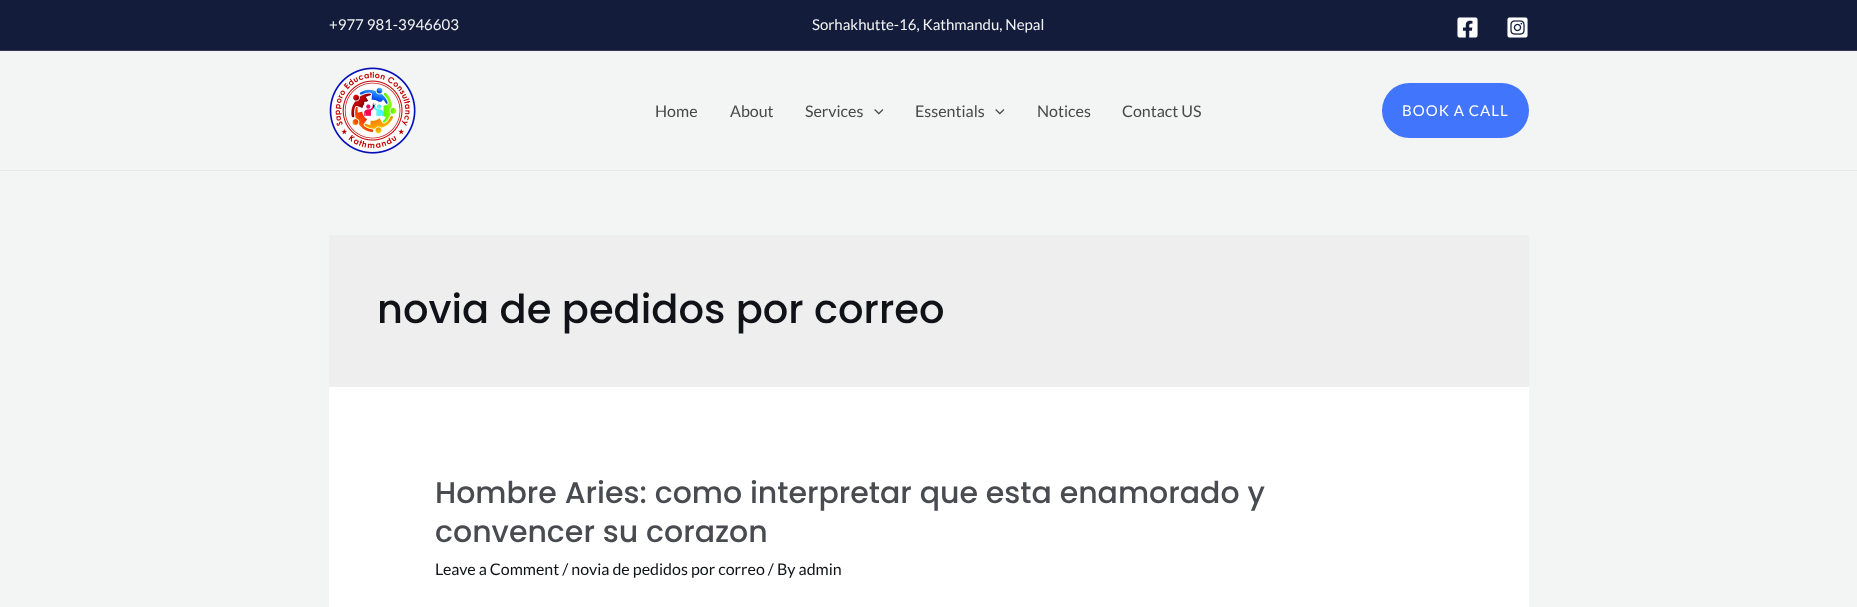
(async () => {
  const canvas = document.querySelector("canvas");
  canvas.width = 1857;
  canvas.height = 607;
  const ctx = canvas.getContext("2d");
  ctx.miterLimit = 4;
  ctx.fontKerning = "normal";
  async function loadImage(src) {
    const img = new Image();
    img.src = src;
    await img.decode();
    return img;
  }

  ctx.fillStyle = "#f3f5f5";
  ctx.fillRect(0, 0, 1857, 607);
  ctx.fillStyle = "#131d3b";
  ctx.fillRect(0, 0, 1857, 50);
  ctx.fillStyle = "#2f3853";
  ctx.fillRect(0, 50, 1857, 1);
  ctx.drawImage(await loadImage("img/1.png"), 1457, 17, 21, 21);
  ctx.drawImage(await loadImage("img/2.png"), 1507, 17, 21, 21);
  ctx.fillStyle = "#e8e8e8";
  ctx.fillRect(0, 170, 1857, 1);
  ctx.drawImage(await loadImage("img/3.png"), 329, 67, 87, 87);
  ctx.drawImage(await loadImage("img/4.png"), 874, 109, 9, 6);
  ctx.drawImage(await loadImage("img/5.png"), 995, 109, 10, 6);
  ctx.fillStyle = "#4175fc";
  ctx.beginPath();
  ctx.roundRect(1382, 83, 147, 55, 27.5);
  ctx.fill();
  ctx.fillStyle = "#eeeeee";
  ctx.fillRect(329, 235, 1200, 152);
  ctx.fillStyle = "#ffffff";
  ctx.fillRect(329, 387, 1200, 220);
  ctx.font = "15px Lato";
  ctx.fillStyle = "#f3f5f5";
  ctx.fillText("+977 981-3946603", 329, 30);
  ctx.fillText("Sorhakhutte-16, Kathmandu, Nepal", 812, 30);
  ctx.font = "16px Lato";
  ctx.fillStyle = "#484848";
  for (const [text, x, y] of [
    ["Home", 655, 117],
    ["About", 730, 117],
    ["Services", 805, 117],
    ["Essentials", 915, 117],
    ["Notices", 1037, 117],
    ["Contact US", 1122, 117],
  ]) {
    ctx.fillText(text, x, y);
  }
  ctx.letterSpacing = "1px";
  ctx.font = "15px Lato";
  ctx.fillStyle = "#ffffff";
  ctx.fillText("BOOK A CALL", 1402, 116);
  ctx.letterSpacing = "0px";
  ctx.font = "500 40px Poppins";
  ctx.fillStyle = "#101218";
  ctx.fillText("novia de pedidos por correo", 377, 323);
  ctx.font = "500 30px Poppins";
  ctx.fillStyle = "#494b51";
  ctx.fillText("Hombre Aries: como interpretar que esta enamorado y", 435, 503);
  ctx.fillText("convencer su corazon", 435, 542);
  ctx.font = "16px Lato";
  ctx.fillStyle = "#101218";
  ctx.fillText("Leave a Comment / novia de pedidos por correo / By admin", 435, 575);
})();
